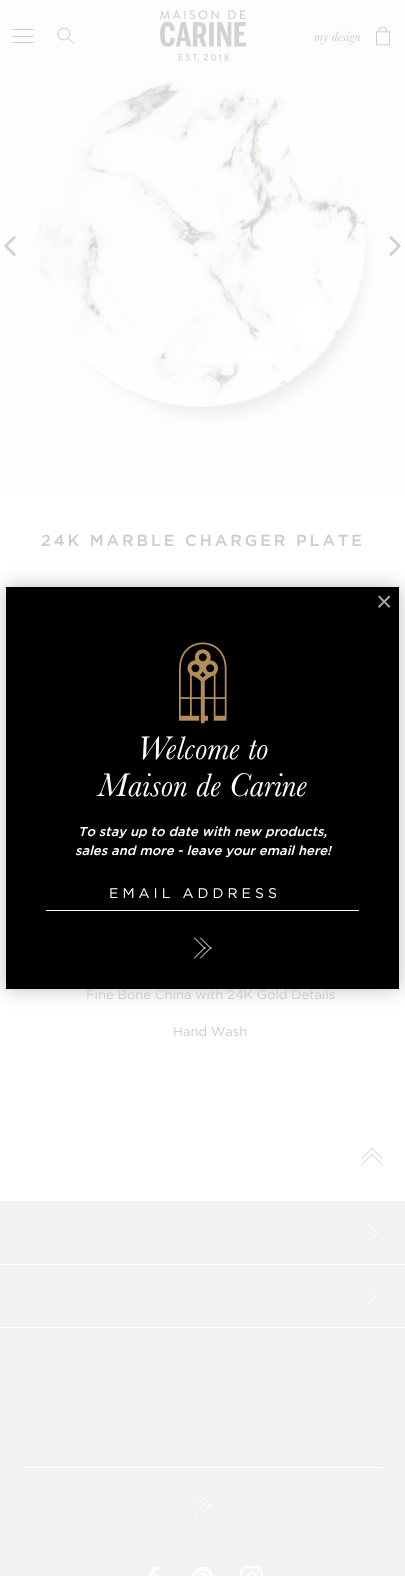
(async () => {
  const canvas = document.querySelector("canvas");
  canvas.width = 405;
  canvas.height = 1576;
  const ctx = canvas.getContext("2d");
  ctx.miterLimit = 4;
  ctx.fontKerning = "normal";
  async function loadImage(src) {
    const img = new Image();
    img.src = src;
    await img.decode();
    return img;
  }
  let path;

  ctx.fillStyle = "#f0f3f2";
  ctx.fillRect(0, 0, 405, 1576);
  ctx.fillStyle = "#ffffff";
  ctx.fillRect(0, 0, 405, 1201);
  path = new Path2D("M371.5 1154L382 1164.5M372.5 1154L362 1164.5M371.5 1148L382 1158.5M372.5 1148L362 1158.5");
  ctx.strokeStyle = "#cecece";
  ctx.lineCap = "square";
  ctx.stroke(path);
  ctx.fillRect(0, 1264, 405, 1);
  path = new Path2D("M377.5 1232.5L366.5 1243M377.5 1233L367 1222.5");
  ctx.strokeStyle = "#ffffff";
  ctx.stroke(path);
  ctx.fillRect(0, 1327, 405, 1);
  path = new Path2D("M377.5 1295.5L366.5 1306M377.5 1296L367 1285.5");
  ctx.stroke(path);
  ctx.fillRect(22, 1467, 361, 1);
  path = new Path2D("M205 1504.5L194.5 1515M205 1505.5L194.5 1495M211 1504.5L200.5 1515M211 1505.5L200.5 1495");
  ctx.strokeStyle = "#fffefe";
  ctx.stroke(path);
  ctx.drawImage(await loadImage("img/1.png"), 147, 1566, 13, 10);
  ctx.drawImage(await loadImage("img/2.png"), 191, 1567, 22, 9);
  ctx.drawImage(await loadImage("img/3.png"), 240, 1566, 23, 10);
  ctx.drawImage(await loadImage("img/6.png"), 0, 0, 405, 496);
  path = new Path2D("M13 29.5H33M13 36.5H33M13 42.5H33");
  ctx.strokeStyle = "#cccccc";
  ctx.stroke(path);
  ctx.drawImage(await loadImage("img/4.png"), 160, 10, 86, 51);
  ctx.beginPath();
  ctx.arc(64, 34, 6, 0, Math.PI * 2);
  ctx.stroke();
  path = new Path2D("M68 38L74 43.5");
  ctx.strokeStyle = "#cdcdcd";
  ctx.stroke(path);
  ctx.drawImage(await loadImage("img/5.png"), 376, 26, 14, 20);
  ctx.drawImage(await loadImage("img/7.png"), 4, 236, 12, 20);
  ctx.drawImage(await loadImage("img/8.png"), 389, 236, 12, 20);
  ctx.fillStyle = "rgba(0, 0, 0, 0.25)";
  ctx.filter = "blur(10px)";
  ctx.beginPath();
  ctx.rect(6, 587, 393, 402);
  ctx.fill();
  ctx.filter = "none";
  ctx.fillStyle = "#000000";
  ctx.fillRect(6, 587, 393, 402);
  ctx.drawImage(await loadImage("img/9.png"), 179, 642, 48, 82);
  ctx.fillStyle = "#ffffff";
  ctx.fillRect(46, 910, 313, 1);
  path = new Path2D("M205 947.5L194.5 958M205 948.5L194.5 938M211 947.5L200.5 958M211 948.5L200.5 938");
  ctx.strokeStyle = "#fefafa";
  ctx.stroke(path);
  ctx.font = "italic 14px Baskerville";
  ctx.fillStyle = "#cccccc";
  ctx.fillText("my design", 314, 41);
  ctx.letterSpacing = "2.9px";
  ctx.font = "500 16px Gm";
  ctx.fillText("24K MARBLE CHARGER PLATE", 41, 546);
  ctx.letterSpacing = "0px";
  ctx.font = "13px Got";
  ctx.fillText("Fine Bone China with 24K Gold Details", 86, 999);
  ctx.fillText("Hand Wash", 173, 1036);
  ctx.font = "28px Liberation Sans";
  ctx.fillStyle = "#a6a6a6";
  ctx.fillText("×", 376, 611);
  ctx.font = "italic 34px Baskerville";
  ctx.fillStyle = "#ffffff";
  ctx.fillText("Welcome to", 137, 759);
  ctx.fillText("Maison de Carine", 98, 796);
  ctx.font = "italic 500 13px Gm";
  ctx.fillText("To stay up to date with new products,", 78, 836);
  ctx.fillText("sales and more - leave your email here!", 75, 855);
  ctx.letterSpacing = "4px";
  ctx.font = "14px Got";
  ctx.fillText("EMAIL ADDRESS", 109, 898);
})();
